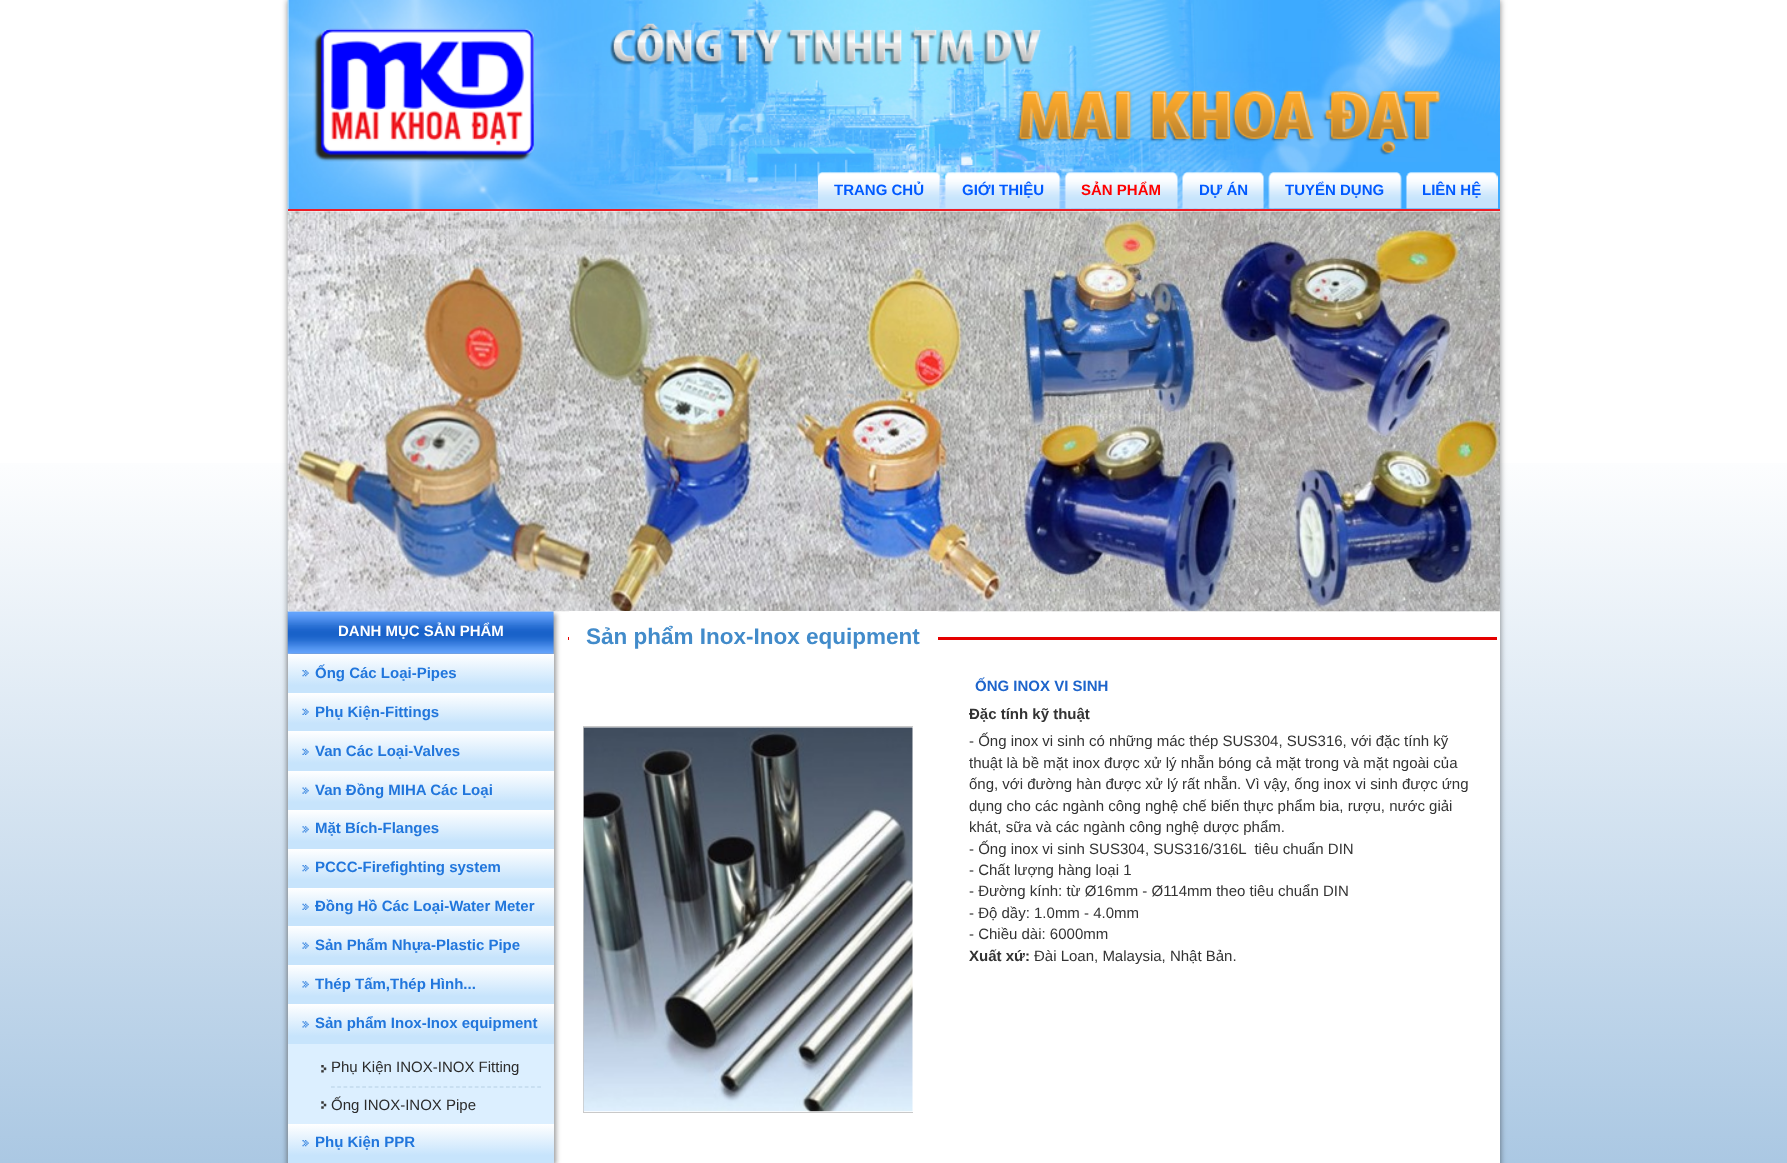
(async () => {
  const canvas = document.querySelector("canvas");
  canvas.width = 1787;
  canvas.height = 1163;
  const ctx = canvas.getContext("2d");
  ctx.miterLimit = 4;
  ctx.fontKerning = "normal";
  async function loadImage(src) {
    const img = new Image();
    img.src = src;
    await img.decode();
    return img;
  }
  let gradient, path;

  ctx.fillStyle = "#ffffff";
  ctx.fillRect(0, 0, 1787, 1163);
  gradient = ctx.createLinearGradient(894, 0, 894, 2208);
  gradient.addColorStop(0.2, "#ffffff");
  gradient.addColorStop(1, "#3178ba");
  ctx.fillStyle = gradient;
  ctx.fillRect(0, 463, 1787, 700);
  ctx.fillStyle = "rgba(0, 0, 0, 0.5)";
  ctx.filter = "blur(3px)";
  ctx.beginPath();
  ctx.rect(288, 0, 1212, 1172);
  ctx.fill();
  ctx.filter = "none";
  ctx.fillStyle = "#ffffff";
  ctx.fillRect(288, 611, 1212, 552);
  ctx.drawImage(await loadImage("img/1.png"), 287, 0, 1213, 212);
  ctx.fillStyle = "#ee1c24";
  ctx.fillRect(288, 209, 1212, 2);
  ctx.drawImage(await loadImage("img/2.png"), 313, 23, 1128, 139);
  ctx.drawImage(await loadImage("img/3.png"), 818, 172, 123, 37);
  ctx.drawImage(await loadImage("img/4.png"), 944, 172, 117, 37);
  ctx.drawImage(await loadImage("img/5.png"), 1064, 172, 114, 37);
  ctx.drawImage(await loadImage("img/6.png"), 1182, 172, 83, 37);
  ctx.drawImage(await loadImage("img/7.png"), 1268, 172, 134, 37);
  ctx.drawImage(await loadImage("img/8.png"), 1405, 172, 93, 37);
  ctx.fillStyle = "#ffffff";
  ctx.fillRect(288, 211, 1212, 1);
  ctx.fillStyle = "#999999";
  ctx.filter = "blur(2.5px)";
  ctx.beginPath();
  ctx.rect(289, 614, 267, 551);
  ctx.fill();
  ctx.filter = "none";
  ctx.drawImage(await loadImage("img/10.png"), 287, 611, 267, 43);
  ctx.drawImage(await loadImage("img/9.png"), 287, 211, 1213, 401);
  gradient = ctx.createLinearGradient(421, 654, 421, 693);
  gradient.addColorStop(0, "#ffffff");
  gradient.addColorStop(0.8, "#c7e4fc");
  ctx.fillStyle = gradient;
  ctx.fillRect(288, 654, 266, 39);
  ctx.drawImage(await loadImage("img/11.png"), 302, 670, 7, 7);
  gradient = ctx.createLinearGradient(421, 693, 421, 731);
  gradient.addColorStop(0, "#ffffff");
  gradient.addColorStop(0.8, "#c7e4fc");
  ctx.fillStyle = gradient;
  ctx.fillRect(288, 693, 266, 38);
  ctx.drawImage(await loadImage("img/12.png"), 302, 708, 7, 7);
  gradient = ctx.createLinearGradient(421, 731, 421, 771);
  gradient.addColorStop(0, "#ffffff");
  gradient.addColorStop(0.8, "#c7e4fc");
  ctx.fillStyle = gradient;
  ctx.fillRect(288, 731, 266, 40);
  ctx.drawImage(await loadImage("img/13.png"), 302, 748, 7, 7);
  gradient = ctx.createLinearGradient(421, 771, 421, 810);
  gradient.addColorStop(0, "#ffffff");
  gradient.addColorStop(0.8, "#c7e4fc");
  ctx.fillStyle = gradient;
  ctx.fillRect(288, 771, 266, 39);
  ctx.drawImage(await loadImage("img/14.png"), 302, 787, 7, 7);
  gradient = ctx.createLinearGradient(421, 810, 421, 849);
  gradient.addColorStop(0, "#ffffff");
  gradient.addColorStop(0.8, "#c7e4fc");
  ctx.fillStyle = gradient;
  ctx.fillRect(288, 810, 266, 39);
  ctx.drawImage(await loadImage("img/15.png"), 302, 826, 7, 7);
  gradient = ctx.createLinearGradient(421, 849, 421, 888);
  gradient.addColorStop(0, "#ffffff");
  gradient.addColorStop(0.8, "#c7e4fc");
  ctx.fillStyle = gradient;
  ctx.fillRect(288, 849, 266, 39);
  ctx.drawImage(await loadImage("img/11.png"), 302, 865, 7, 7);
  gradient = ctx.createLinearGradient(421, 888, 421, 926);
  gradient.addColorStop(0, "#ffffff");
  gradient.addColorStop(0.8, "#c7e4fc");
  ctx.fillStyle = gradient;
  ctx.fillRect(288, 888, 266, 38);
  ctx.drawImage(await loadImage("img/12.png"), 302, 903, 7, 7);
  gradient = ctx.createLinearGradient(421, 926, 421, 965);
  gradient.addColorStop(0, "#ffffff");
  gradient.addColorStop(0.8, "#c7e4fc");
  ctx.fillStyle = gradient;
  ctx.fillRect(288, 926, 266, 39);
  ctx.drawImage(await loadImage("img/14.png"), 302, 942, 7, 7);
  gradient = ctx.createLinearGradient(421, 965, 421, 1004);
  gradient.addColorStop(0, "#ffffff");
  gradient.addColorStop(0.8, "#c7e4fc");
  ctx.fillStyle = gradient;
  ctx.fillRect(288, 965, 266, 39);
  ctx.drawImage(await loadImage("img/15.png"), 302, 981, 7, 7);
  gradient = ctx.createLinearGradient(421, 1004, 421, 1044);
  gradient.addColorStop(0, "#ffffff");
  gradient.addColorStop(0.8, "#c7e4fc");
  ctx.fillStyle = gradient;
  ctx.fillRect(288, 1004, 266, 40);
  ctx.drawImage(await loadImage("img/16.png"), 302, 1021, 7, 7);
  ctx.fillStyle = "#dcefff";
  ctx.fillRect(288, 1044, 266, 80);
  ctx.drawImage(await loadImage("img/17.png"), 321, 1065, 6, 8);
  path = new Path2D("M331 1087H541");
  ctx.strokeStyle = "#b6d0e4";
  ctx.lineWidth = 1.2;
  ctx.setLineDash([3.75, 2.5]);
  ctx.stroke(path);
  ctx.drawImage(await loadImage("img/18.png"), 321, 1101, 6, 8);
  gradient = ctx.createLinearGradient(421, 1124, 421, 1163);
  gradient.addColorStop(0, "#ffffff");
  gradient.addColorStop(0.8, "#c7e4fc");
  ctx.fillStyle = gradient;
  ctx.fillRect(288, 1124, 266, 39);
  ctx.drawImage(await loadImage("img/11.png"), 302, 1140, 7, 7);
  ctx.fillStyle = "#e50000";
  ctx.fillRect(568, 637, 929, 3);
  ctx.fillStyle = "#ffffff";
  ctx.fillRect(569, 611, 369, 29);
  ctx.save();
  ctx.beginPath();
  ctx.rect(583, 673, 330, 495);
  ctx.clip();
  ctx.strokeStyle = "#c9c9c9";
  ctx.lineWidth = 1;
  ctx.setLineDash([]);
  ctx.strokeRect(583.5, 726.5, 376, 386);
  ctx.restore();
  ctx.drawImage(await loadImage("img/19.png"), 583, 727, 330, 385);
  ctx.font = "bold 15px Liberation Sans";
  ctx.fillStyle = "#005aff";
  ctx.fillText("TRANG CHỦ", 834, 195);
  ctx.fillText("GIỚI THIỆU", 962, 195);
  ctx.fillStyle = "#ff0000";
  ctx.fillText("SẢN PHẨM", 1081, 195);
  ctx.fillStyle = "#005aff";
  for (const [text, x, y] of [
    ["DỰ ÁN", 1199, 195],
    ["TUYỂN DỤNG", 1285, 195],
    ["LIÊN HỆ", 1422, 195],
  ]) {
    ctx.fillText(text, x, y);
  }
  ctx.fillStyle = "#ffffff";
  ctx.fillText("DANH MỤC SẢN PHẨM", 338, 636);
  ctx.fillStyle = "#2176dc";
  for (const [text, x, y] of [
    ["Ống Các Loại-Pipes", 315, 678],
    ["Phụ Kiện-Fittings", 315, 717],
    ["Van Các Loại-Valves", 315, 756],
    ["Van Đồng MIHA Các Loại", 315, 795],
    ["Mặt Bích-Flanges", 315, 833],
    ["PCCC-Firefighting system", 315, 872],
    ["Đồng Hồ Các Loại-Water Meter", 315, 911],
    ["Sản Phẩm Nhựa-Plastic Pipe", 315, 950],
    ["Thép Tấm,Thép Hình...", 315, 989],
    ["Sản phẩm Inox-Inox equipment", 315, 1028],
  ]) {
    ctx.fillText(text, x, y);
  }
  ctx.font = "15px Liberation Sans";
  ctx.fillStyle = "#2b2b2b";
  ctx.fillText("Phụ Kiện INOX-INOX Fitting", 331, 1072);
  ctx.fillText("Ống INOX-INOX Pipe", 331, 1110);
  ctx.font = "bold 15px Liberation Sans";
  ctx.fillStyle = "#2176dc";
  ctx.fillText("Phụ Kiện PPR", 315, 1147);
  ctx.font = "bold 22.5px Liberation Sans";
  ctx.fillStyle = "#428bca";
  ctx.fillText("Sản phẩm Inox-Inox equipment", 586, 644);
  ctx.font = "bold 15px Liberation Sans";
  ctx.fillStyle = "#1d64cb";
  ctx.fillText("ỐNG INOX VI SINH", 975, 691);
  ctx.fillStyle = "#333333";
  ctx.fillText("Đặc tính kỹ thuật", 969, 719);
  ctx.font = "15px Liberation Sans";
  for (const [text, x, y] of [
    ["- Ống inox vi sinh có những mác thép SUS304, SUS316, với đặc tính kỹ", 969, 746],
    ["thuật là bề mặt inox được xử lý nhẵn bóng cả mặt trong và mặt ngoài của", 969, 768],
    ["ống, với đường hàn được xử lý rất nhẵn. Vì vậy, ống inox vi sinh được ứng", 969, 789],
    ["dụng cho các ngành công nghệ chế biến thực phẩm bia, rượu, nước giải", 969, 811],
    ["khát, sữa và các ngành công nghệ dược phẩm.", 969, 832],
    ["- Ống inox vi sinh SUS304, SUS316/316L  tiêu chuẩn DIN", 969, 854],
    ["- Chất lượng hàng loại 1", 969, 875],
    ["- Đường kính: từ Ø16mm - Ø114mm theo tiêu chuẩn DIN", 969, 896],
    ["- Độ dầy: 1.0mm - 4.0mm", 969, 918],
    ["- Chiều dài: 6000mm", 969, 939],
  ]) {
    ctx.fillText(text, x, y);
  }
  ctx.font = "bold 15px Liberation Sans";
  ctx.fillText("Xuất xứ:", 969, 961);
  ctx.font = "15px Liberation Sans";
  ctx.fillText("Đài Loan, Malaysia, Nhật Bản.", 1034, 961);
})();
